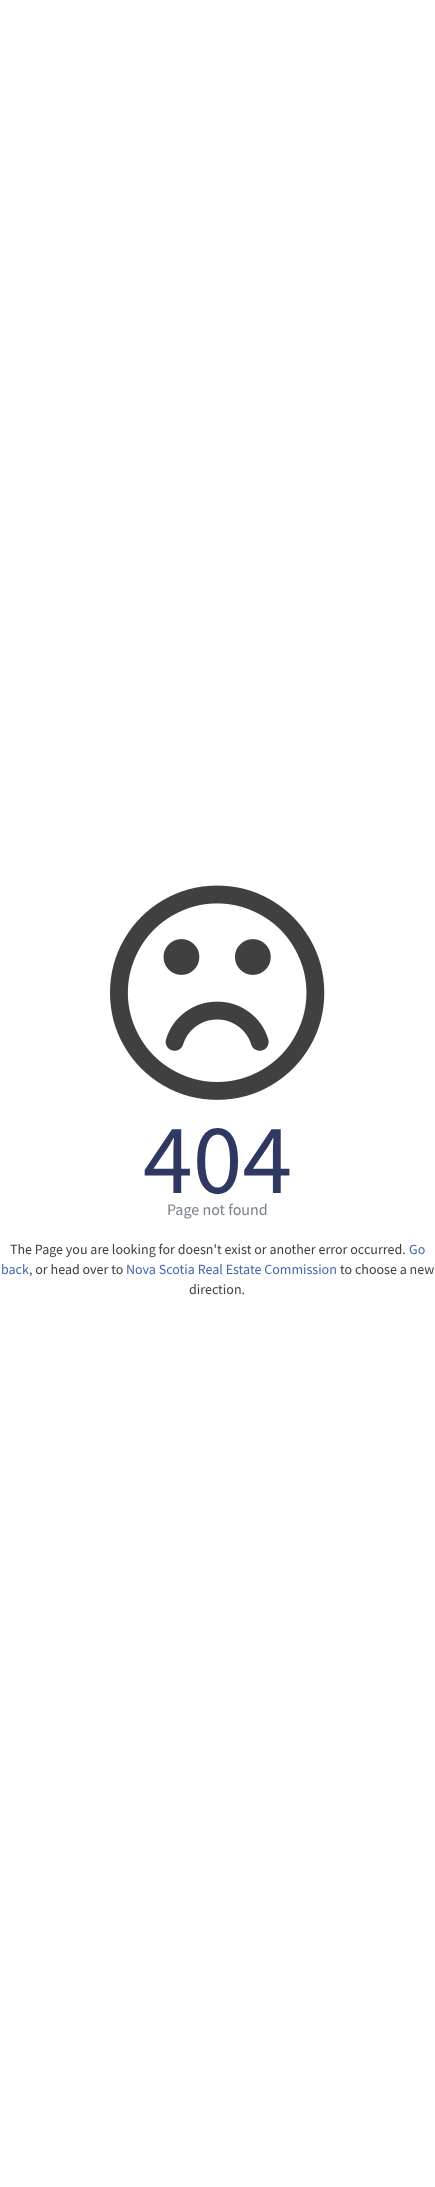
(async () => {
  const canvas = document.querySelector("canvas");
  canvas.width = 435;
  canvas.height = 2187;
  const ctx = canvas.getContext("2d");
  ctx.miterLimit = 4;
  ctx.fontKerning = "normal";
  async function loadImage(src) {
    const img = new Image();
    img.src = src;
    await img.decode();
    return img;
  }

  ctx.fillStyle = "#ffffff";
  ctx.fillRect(0, 0, 435, 2187);
  ctx.drawImage(await loadImage("img/1.png"), 110, 885, 215, 215);
  ctx.font = "100px Source Sans Pro";
  ctx.fillStyle = "#303861";
  ctx.fillText("404", 143, 1193);
  ctx.font = "16px Source Sans Pro";
  ctx.fillStyle = "#78828d";
  ctx.fillText("Page not found", 167, 1215);
  ctx.font = "14px Source Sans Pro";
  ctx.fillStyle = "#404041";
  ctx.fillText("The Page you are looking for doesn't exist or another error occurred.", 10, 1254);
  ctx.fillStyle = "#4466a9";
  ctx.fillText("Go", 409, 1254);
  ctx.fillText("back", 1, 1274);
  ctx.fillStyle = "#404041";
  ctx.fillText(", or head over to", 29, 1274);
  ctx.fillStyle = "#4466a9";
  ctx.fillText("Nova Scotia Real Estate Commission", 126, 1274);
  ctx.fillStyle = "#404041";
  ctx.fillText("to choose a new", 340, 1274);
  ctx.fillText("direction.", 189, 1294);
})();
